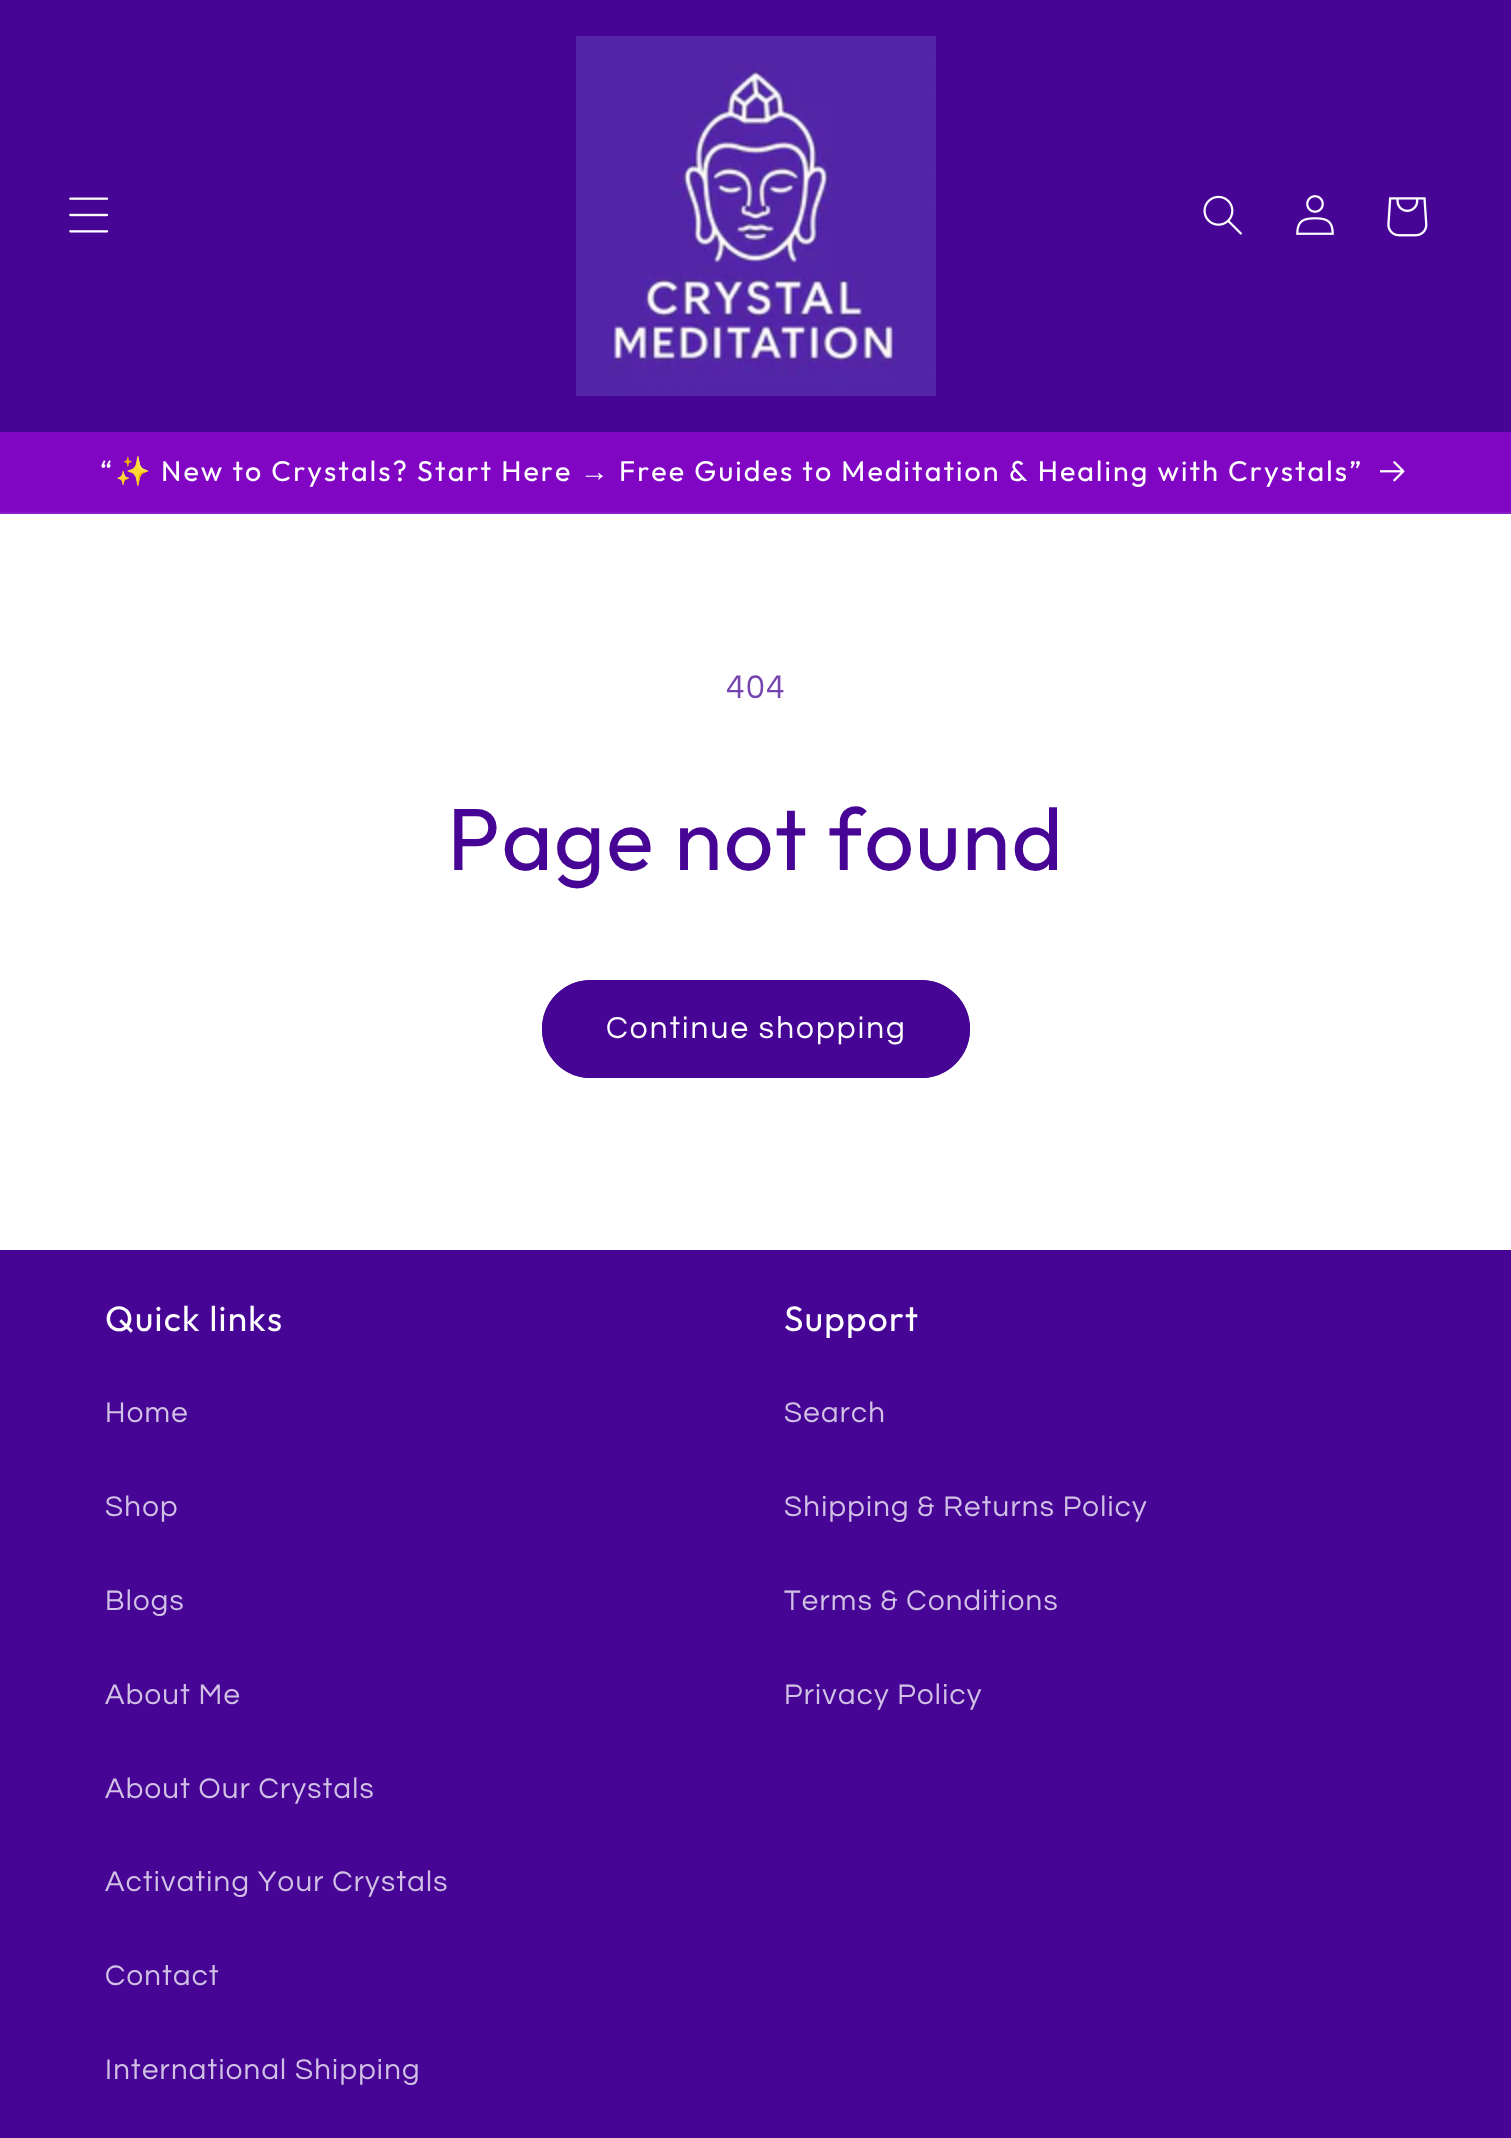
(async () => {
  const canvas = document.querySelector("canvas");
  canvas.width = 1511;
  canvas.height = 2138;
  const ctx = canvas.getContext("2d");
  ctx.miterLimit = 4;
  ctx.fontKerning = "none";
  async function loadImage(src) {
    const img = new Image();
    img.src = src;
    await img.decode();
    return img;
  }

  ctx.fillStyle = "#ffffff";
  ctx.fillRect(0, 0, 1511, 2138);
  ctx.fillStyle = "#470595";
  ctx.fillRect(0, 0, 1511, 432);
  ctx.drawImage(await loadImage("img/1.png"), 69, 197, 40, 36);
  ctx.drawImage(await loadImage("img/2.png"), 576, 36, 360, 360);
  ctx.drawImage(await loadImage("img/3.png"), 1203, 195, 39, 40);
  ctx.drawImage(await loadImage("img/4.png"), 1296, 195, 38, 40);
  ctx.drawImage(await loadImage("img/5.png"), 1387, 197, 41, 40);
  ctx.fillStyle = "#8106c3";
  ctx.fillRect(0, 432, 1511, 80);
  ctx.fillStyle = "#8b1ac8";
  ctx.fillRect(0, 512, 1511, 2);
  ctx.drawImage(await loadImage("img/6.png"), 1380, 461, 25, 21);
  ctx.fillStyle = "#470595";
  ctx.beginPath();
  ctx.roundRect(542, 980, 428, 98, 49);
  ctx.fill();
  ctx.beginPath();
  ctx.roundRect(543, 981, 426, 96, 48);
  ctx.strokeStyle = "#470595";
  ctx.lineWidth = 2;
  ctx.stroke();
  ctx.fillRect(0, 1250, 1511, 888);
  ctx.letterSpacing = "2.1px";
  ctx.font = "28.6px Outfit";
  ctx.fillStyle = "#ffffff";
  ctx.fillText("“", 100, 481);
  ctx.font = "28.6px Noto Color Emoji";
  ctx.fillText("✨", 115, 481);
  ctx.font = "28.6px Outfit";
  ctx.fillText("New to Crystals? Start Here", 161, 481);
  ctx.font = "28.6px Liberation Sans";
  ctx.fillText("→", 580, 481);
  ctx.font = "28.6px Outfit";
  ctx.fillText("Free Guides to Meditation & Healing with Crystals”", 619, 481);
  ctx.letterSpacing = "1.25px";
  ctx.font = "34px Questrial";
  ctx.fillStyle = "#7544b0";
  ctx.fillText("404", 726, 698);
  ctx.font = "88px Outfit";
  ctx.fillStyle = "#470595";
  ctx.fillText("Page not found", 447, 870);
  ctx.letterSpacing = "2.1px";
  ctx.font = "31.5px Questrial";
  ctx.fillStyle = "#ffffff";
  ctx.fillText("Continue shopping", 606, 1038);
  ctx.letterSpacing = "1.25px";
  ctx.font = "35.25px Outfit";
  ctx.fillText("Quick links", 105, 1331);
  ctx.font = "29.4px Questrial";
  ctx.fillStyle = "#d1c1e5";
  for (const [text, x, y] of [
    ["Home", 105, 1422],
    ["Shop", 105, 1516],
    ["Blogs", 105, 1610],
    ["About Me", 105, 1704],
    ["About Our Crystals", 105, 1798],
    ["Activating Your Crystals", 105, 1891],
    ["Contact", 105, 1985],
    ["International Shipping", 105, 2079],
  ]) {
    ctx.fillText(text, x, y);
  }
  ctx.font = "35.25px Outfit";
  ctx.fillStyle = "#ffffff";
  ctx.fillText("Support", 784, 1331);
  ctx.font = "29.4px Questrial";
  ctx.fillStyle = "#d1c1e5";
  for (const [text, x, y] of [
    ["Search", 784, 1422],
    ["Shipping & Returns Policy", 784, 1516],
    ["Terms & Conditions", 784, 1610],
    ["Privacy Policy", 784, 1704],
  ]) {
    ctx.fillText(text, x, y);
  }
})();
